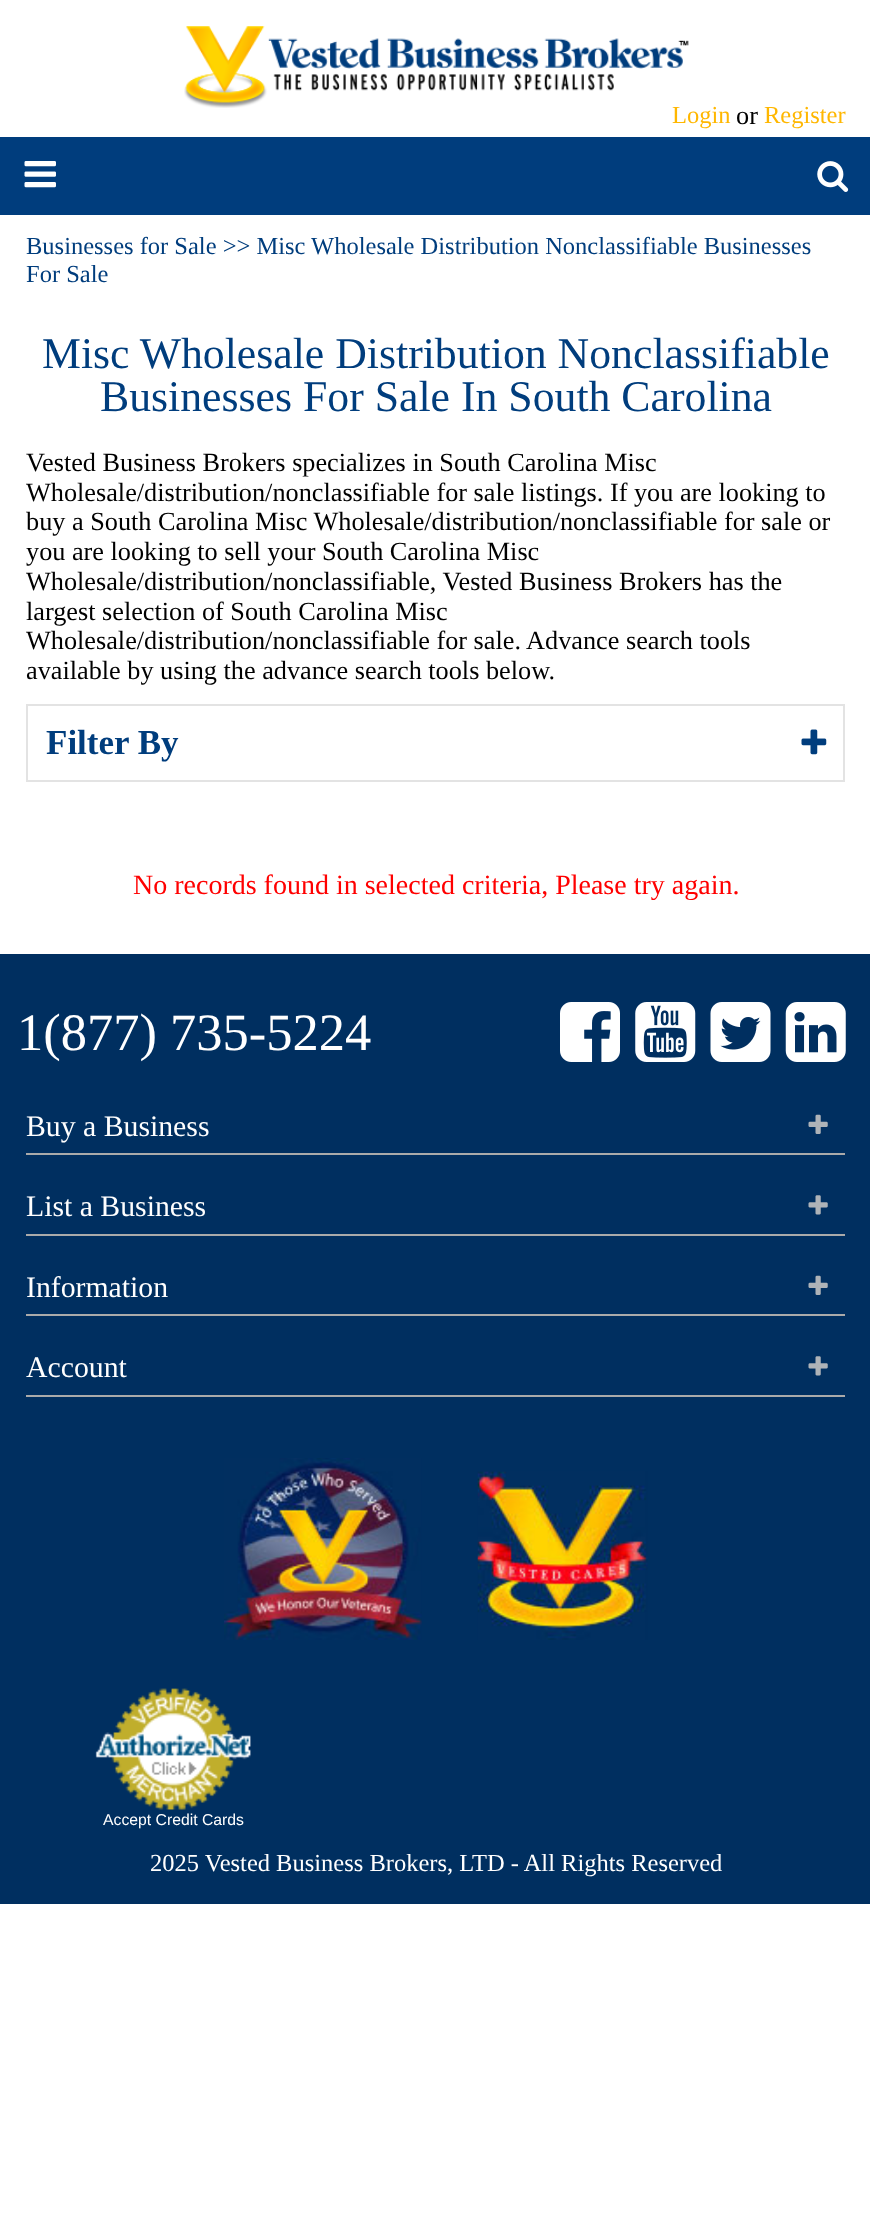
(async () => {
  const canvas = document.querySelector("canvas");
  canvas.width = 870;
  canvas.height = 2238;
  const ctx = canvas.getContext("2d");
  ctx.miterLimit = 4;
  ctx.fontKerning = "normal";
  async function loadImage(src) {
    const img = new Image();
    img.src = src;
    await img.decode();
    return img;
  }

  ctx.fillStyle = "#ffffff";
  ctx.fillRect(0, 0, 870, 2238);
  ctx.drawImage(await loadImage("img/1.png"), 184, 26, 505, 82);
  ctx.fillStyle = "#003d7d";
  ctx.fillRect(0, 137, 870, 78);
  ctx.drawImage(await loadImage("img/2.png"), 817, 161, 32, 31);
  ctx.drawImage(await loadImage("img/3.png"), 24, 161, 32, 27);
  ctx.strokeStyle = "#e3e3e3";
  ctx.lineWidth = 2;
  ctx.strokeRect(27, 705, 817, 76);
  ctx.drawImage(await loadImage("img/4.png"), 801, 729, 26, 26);
  ctx.fillStyle = "#002f60";
  ctx.fillRect(0, 954, 870, 950);
  ctx.drawImage(await loadImage("img/5.png"), 560, 1002, 60, 60);
  ctx.drawImage(await loadImage("img/6.png"), 635, 1002, 61, 60);
  ctx.drawImage(await loadImage("img/7.png"), 710, 1002, 61, 60);
  ctx.drawImage(await loadImage("img/8.png"), 785, 1002, 61, 60);
  ctx.fillStyle = "#aaaaaa";
  ctx.fillRect(26, 1153, 819, 2);
  ctx.drawImage(await loadImage("img/9.png"), 808, 1114, 20, 20);
  ctx.fillRect(26, 1234, 819, 2);
  ctx.drawImage(await loadImage("img/10.png"), 808, 1195, 20, 20);
  ctx.fillRect(26, 1314, 819, 2);
  ctx.drawImage(await loadImage("img/9.png"), 808, 1275, 20, 20);
  ctx.fillRect(26, 1395, 819, 2);
  ctx.drawImage(await loadImage("img/10.png"), 808, 1356, 20, 20);
  ctx.drawImage(await loadImage("img/11.png"), 224, 1458, 198, 182);
  ctx.drawImage(await loadImage("img/12.png"), 477, 1471, 171, 169);
  ctx.drawImage(await loadImage("img/13.png"), 95, 1688, 156, 122);
  ctx.font = "24.5px Liberation Serif";
  ctx.fillStyle = "#ffb700";
  ctx.fillText("Login", 672, 123);
  ctx.font = "26.25px Liberation Serif";
  ctx.fillStyle = "#000000";
  ctx.fillText("or", 736, 124);
  ctx.font = "24.5px Liberation Serif";
  ctx.fillStyle = "#ffb700";
  ctx.fillText("Register", 764, 123);
  ctx.fillStyle = "#003d7d";
  ctx.fillText("Businesses for Sale >> Misc Wholesale Distribution Nonclassifiable Businesses", 26, 254);
  ctx.fillText("For Sale", 26, 282);
  ctx.font = "43.75px Liberation Serif";
  ctx.fillText("Misc Wholesale Distribution Nonclassifiable", 42, 368);
  ctx.fillText("Businesses For Sale In South Carolina", 100, 411);
  ctx.font = "26.25px Liberation Serif";
  ctx.fillStyle = "#000000";
  for (const [text, x, y] of [
    ["Vested Business Brokers specializes in South Carolina Misc", 26, 471],
    ["Wholesale/distribution/nonclassifiable for sale listings. If you are looking to", 26, 501],
    ["buy a South Carolina Misc Wholesale/distribution/nonclassifiable for sale or", 26, 530],
    ["you are looking to sell your South Carolina Misc", 26, 560],
    ["Wholesale/distribution/nonclassifiable, Vested Business Brokers has the", 26, 590],
    ["largest selection of South Carolina Misc", 26, 620],
    ["Wholesale/distribution/nonclassifiable for sale. Advance search tools", 26, 649],
    ["available by using the advance search tools below.", 26, 679],
  ]) {
    ctx.fillText(text, x, y);
  }
  ctx.font = "bold 35px Liberation Serif";
  ctx.fillStyle = "#003d7d";
  ctx.fillText("Filter By", 46, 754);
  ctx.font = "28px Liberation Serif";
  ctx.fillStyle = "#ff0000";
  ctx.fillText("No records found in selected criteria, Please try again.", 133, 894);
  ctx.font = "52.5px Liberation Serif";
  ctx.fillStyle = "#ffffff";
  ctx.fillText("1(877) 735-5224", 17, 1050);
  ctx.font = "29.75px Liberation Serif";
  for (const [text, x, y] of [
    ["Buy a Business", 26, 1136],
    ["List a Business", 26, 1216],
    ["Information", 26, 1297],
    ["Account", 26, 1377],
  ]) {
    ctx.fillText(text, x, y);
  }
  ctx.font = "15.75px Liberation Sans";
  ctx.fillText("Accept Credit Cards", 103, 1825);
  ctx.font = "24.5px Liberation Serif";
  ctx.fillText("2025 Vested Business Brokers, LTD - All Rights Reserved", 150, 1871);
})();
